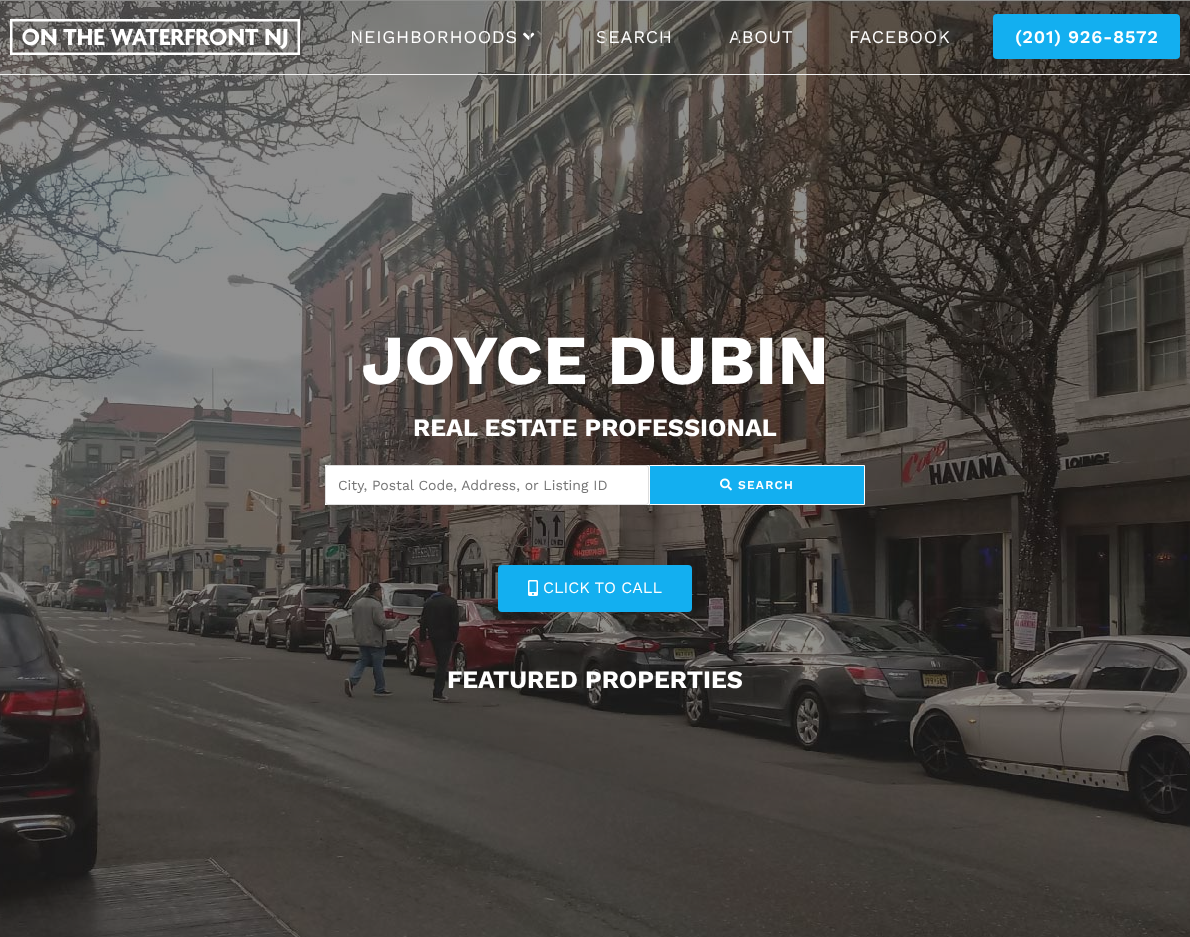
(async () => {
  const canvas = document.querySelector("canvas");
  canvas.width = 1190;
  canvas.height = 937;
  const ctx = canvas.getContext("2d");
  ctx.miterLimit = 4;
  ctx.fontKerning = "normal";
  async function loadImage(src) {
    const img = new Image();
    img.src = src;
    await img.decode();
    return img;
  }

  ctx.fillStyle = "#ffffff";
  ctx.fillRect(0, 0, 1190, 937);
  ctx.drawImage(await loadImage("img/3.png"), 0, 0, 1190, 937);
  ctx.fillStyle = "#f1f1f1";
  ctx.fillRect(0, 74, 1190, 1);
  ctx.drawImage(await loadImage("img/1.png"), 10, 19, 290, 36);
  ctx.drawImage(await loadImage("img/2.png"), 523, 32, 12, 8);
  ctx.fillStyle = "#13aff0";
  ctx.beginPath();
  ctx.roundRect(993, 14, 187, 45, 4);
  ctx.fill();
  ctx.fillStyle = "#ffffff";
  ctx.fillRect(325, 465, 324, 40);
  ctx.beginPath();
  ctx.roundRect(325.5, 465.5, 323, 39, 2.5);
  ctx.strokeStyle = "#dddddd";
  ctx.stroke();
  ctx.fillStyle = "#13aff0";
  ctx.beginPath();
  ctx.rect(649.5, 465.5, 215, 39);
  ctx.fill();
  ctx.strokeStyle = "#ffffff";
  ctx.stroke();
  ctx.drawImage(await loadImage("img/4.png"), 720, 478, 12, 13);
  ctx.beginPath();
  ctx.roundRect(498, 565, 194, 47, 4);
  ctx.fill();
  ctx.drawImage(await loadImage("img/5.png"), 528, 580, 10, 16);
  ctx.letterSpacing = "0.75px";
  ctx.font = "18px Work Sans";
  ctx.fillStyle = "#6d6c6b";
  ctx.fillText("]", 526, 43);
  ctx.fillStyle = "#ffffff";
  ctx.fillText("NEIGHBORHOODS", 350, 43);
  ctx.fillStyle = "#9d9c9a";
  ctx.fillText("[", 357, 43);
  ctx.fillStyle = "#ffffff";
  ctx.fillText("SEARCH", 596, 43);
  ctx.fillStyle = "#686864";
  ctx.fillText("]", 659, 43);
  ctx.fillStyle = "#a4a096";
  ctx.fillText("[", 603, 43);
  ctx.fillStyle = "#ffffff";
  ctx.fillText("ABOUT", 729, 43);
  ctx.fillStyle = "#63605b";
  ctx.fillText("[", 736, 43);
  ctx.fillStyle = "#ffffff";
  ctx.fillText("FACEBOOK", 849, 43);
  ctx.fillStyle = "#757575";
  ctx.fillText("]", 936, 43);
  ctx.font = "600 18px Work Sans";
  ctx.fillStyle = "#ffffff";
  ctx.fillText("(201) 926-8572", 1015, 43);
  ctx.letterSpacing = "0px";
  ctx.font = "bold 70px Work Sans";
  ctx.fillText("JOYCE DUBIN", 361, 384);
  ctx.font = "bold 25px Work Sans";
  ctx.fillText("REAL ESTATE PROFESSIONAL", 413, 436);
  ctx.font = "14px Work Sans";
  ctx.fillStyle = "#757575";
  ctx.fillText("City, Postal Code, Address, or Listing ID", 338, 490);
  ctx.letterSpacing = "1.25px";
  ctx.font = "600 12px Work Sans";
  ctx.fillStyle = "#ffffff";
  ctx.fillText("SEARCH", 738, 489);
  ctx.letterSpacing = "0px";
  ctx.font = "16px Work Sans";
  ctx.fillText("CLICK TO CALL", 543, 593);
  ctx.font = "bold 25px Work Sans";
  ctx.fillText("FEATURED PROPERTIES", 447, 688);
})();
